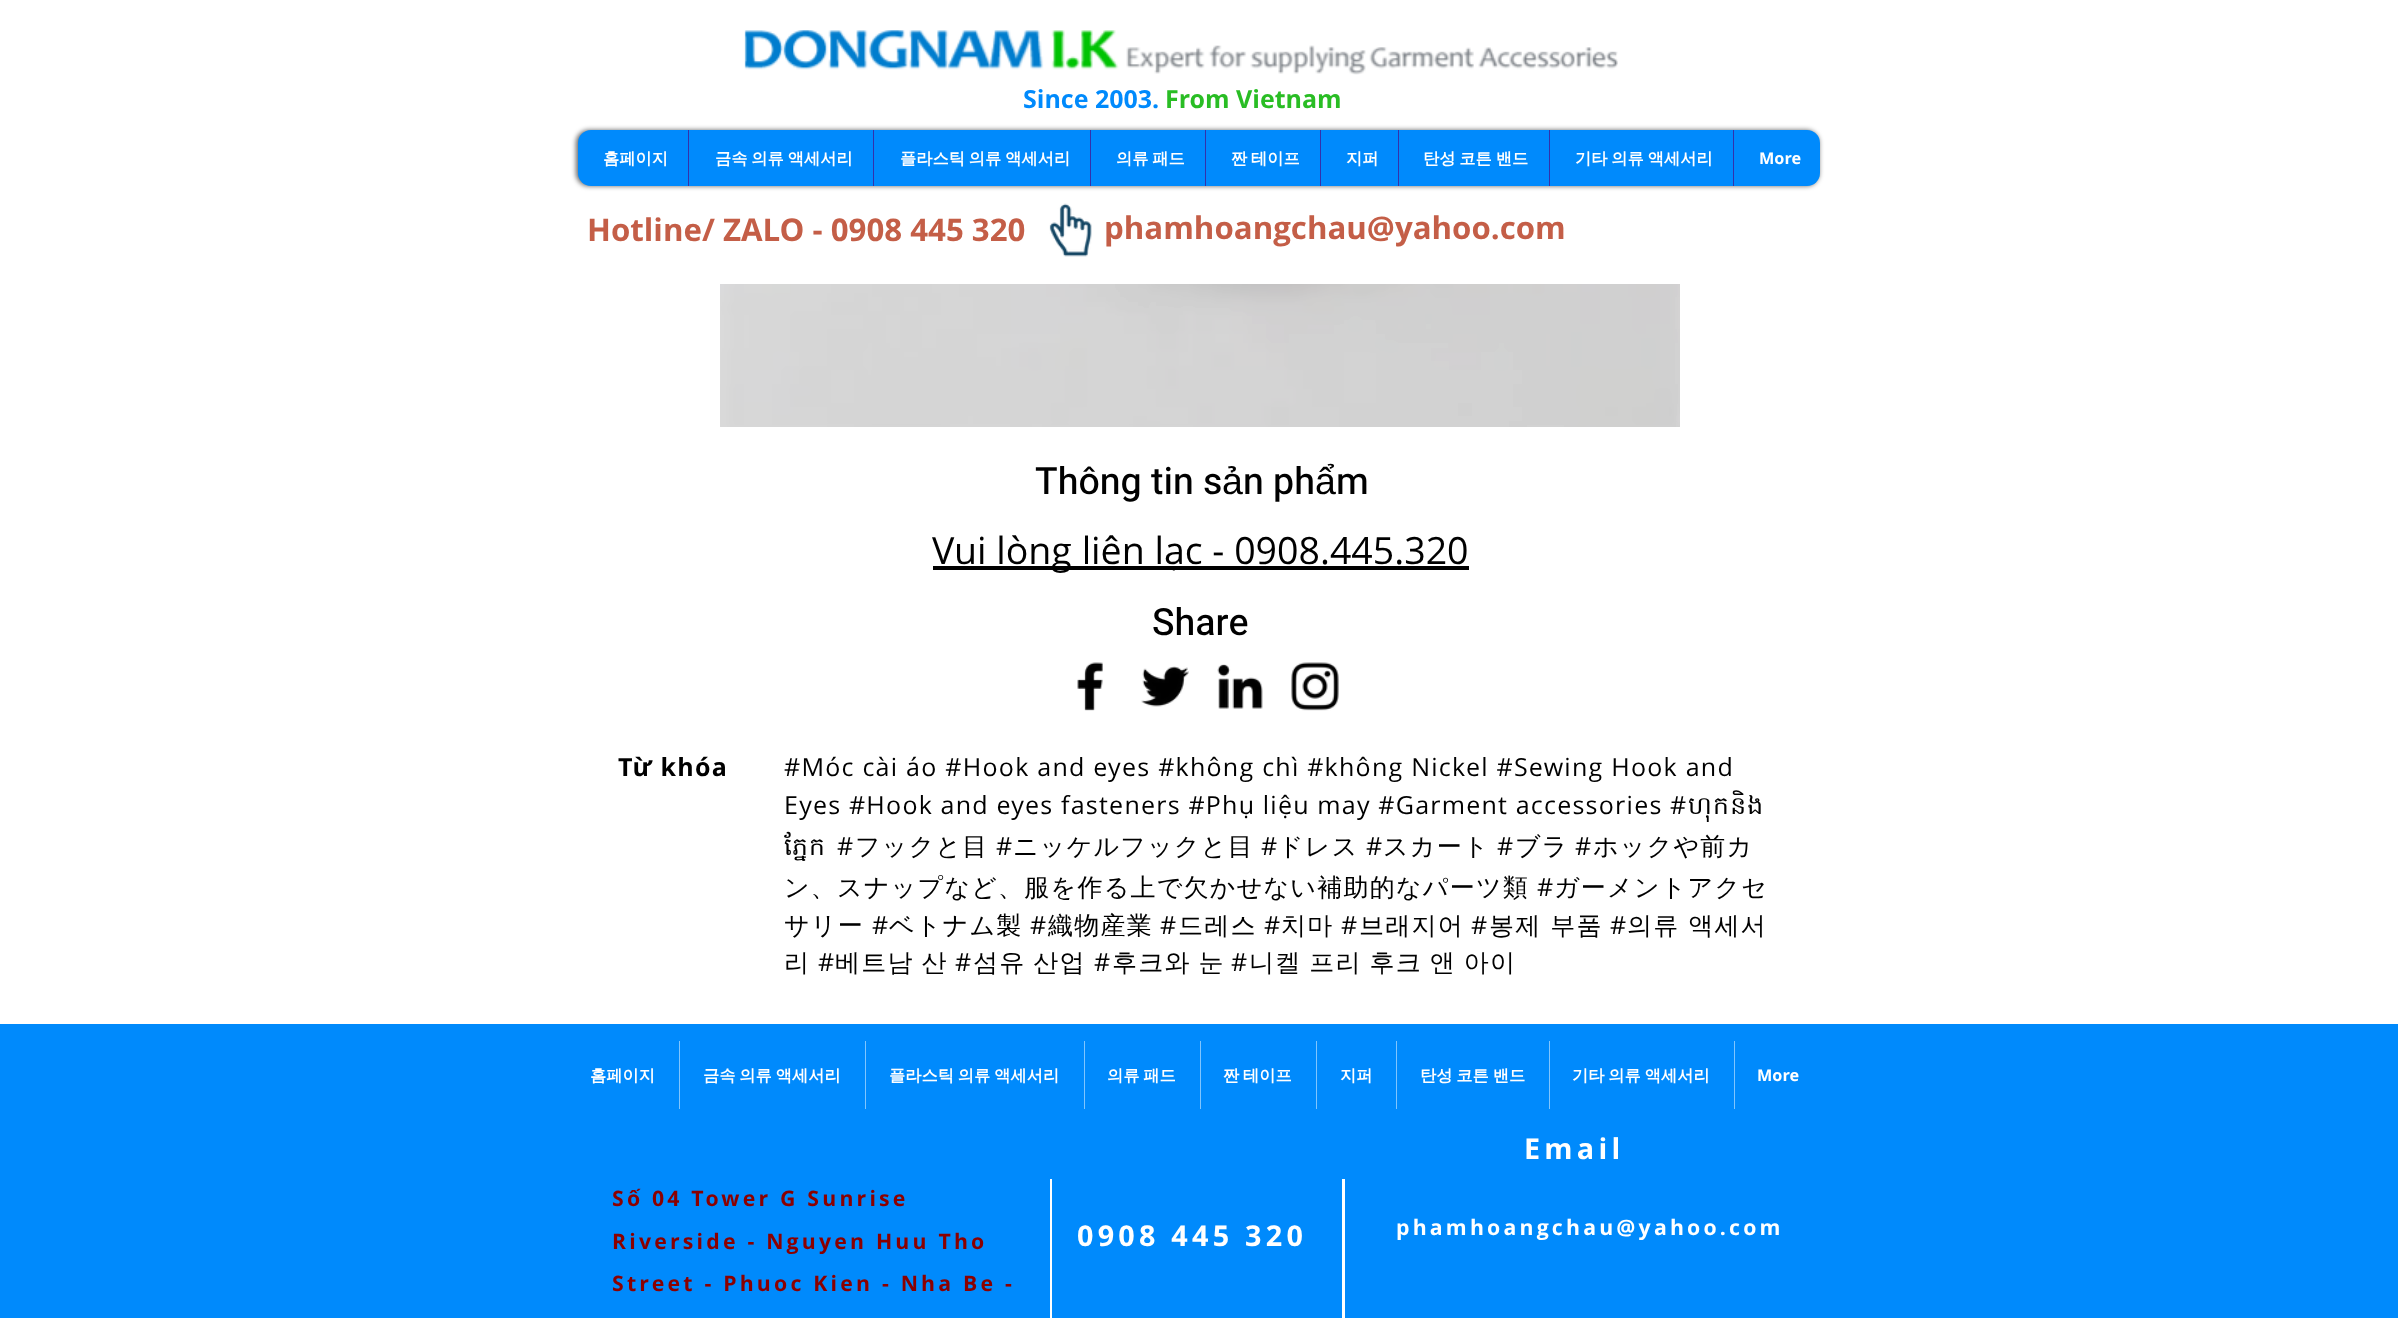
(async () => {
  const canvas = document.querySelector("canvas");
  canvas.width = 2398;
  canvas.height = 1318;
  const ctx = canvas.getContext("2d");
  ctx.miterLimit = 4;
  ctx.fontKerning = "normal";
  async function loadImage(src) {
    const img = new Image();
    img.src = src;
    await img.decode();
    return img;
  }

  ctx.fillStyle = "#ffffff";
  ctx.fillRect(0, 0, 2398, 1318);
  ctx.drawImage(await loadImage("img/1.png"), 744, 30, 874, 45);
  ctx.fillStyle = "rgba(0, 0, 0, 0.6)";
  ctx.filter = "blur(2.5px)";
  ctx.beginPath();
  ctx.roundRect(576, 130, 1243, 56, 13);
  ctx.fill();
  ctx.filter = "none";
  ctx.fillStyle = "#008afc";
  ctx.beginPath();
  ctx.roundRect(578, 130, 1242, 56, 13);
  ctx.fill();
  for (const [x, y, w, h, color] of [
    [688, 130, 1, 56, "#3431aa"],
    [873, 130, 1, 56, "#3431aa"],
    [1090, 130, 1, 56, "#3431aa"],
    [1205, 130, 1, 56, "#3431aa"],
    [1320, 130, 1, 56, "#3431aa"],
    [1398, 130, 1, 56, "#3431aa"],
    [1549, 130, 1, 56, "#3431aa"],
    [1733, 130, 1, 56, "#3431aa"],
  ]) {
    ctx.fillStyle = color;
    ctx.fillRect(x, y, w, h);
  }
  ctx.drawImage(await loadImage("img/2.png"), 1049, 203, 43, 54);
  ctx.drawImage(await loadImage("img/3.png"), 720, 284, 960, 143);
  ctx.fillStyle = "#000000";
  ctx.fillRect(933, 566, 536, 4);
  ctx.drawImage(await loadImage("img/4.png"), 1077, 662, 26, 49);
  ctx.drawImage(await loadImage("img/5.png"), 1141, 666, 48, 41);
  ctx.drawImage(await loadImage("img/6.png"), 1217, 664, 46, 45);
  ctx.drawImage(await loadImage("img/7.png"), 1291, 662, 48, 49);
  for (const [x, y, w, h, color] of [
    [0, 1024, 2398, 294, "#008afc"],
    [679, 1041, 1, 68, "#80c5fe"],
    [865, 1041, 1, 68, "#80c5fe"],
    [1084, 1041, 1, 68, "#80c5fe"],
    [1200, 1041, 1, 68, "#80c5fe"],
    [1316, 1041, 1, 68, "#80c5fe"],
    [1396, 1041, 1, 68, "#80c5fe"],
    [1549, 1041, 1, 68, "#80c5fe"],
    [1734, 1041, 1, 68, "#80c5fe"],
    [1050, 1179, 2, 139, "#ffffff"],
    [1342, 1179, 3, 139, "#ffffff"],
  ]) {
    ctx.fillStyle = color;
    ctx.fillRect(x, y, w, h);
  }
  ctx.font = "bold 25px Open Sans";
  ctx.fillStyle = "#008afc";
  ctx.fillText("Since 2003.", 1023, 108);
  ctx.fillStyle = "#29bd24";
  ctx.fillText("From Vietnam", 1165, 108);
  ctx.font = "bold 16.25px WenQuanYi Zen Hei";
  ctx.fillStyle = "#ffffff";
  ctx.fillText("홈페이지", 603, 164);
  ctx.wordSpacing = "-1px";
  for (const [text, x, y] of [
    ["금속 의류 액세서리", 715, 164],
    ["플라스틱 의류 액세서리", 900, 164],
    ["의류 패드", 1116, 164],
    ["짠 테이프", 1231, 164],
  ]) {
    ctx.fillText(text, x, y);
  }
  ctx.wordSpacing = "0px";
  ctx.fillText("지퍼", 1346, 164);
  ctx.wordSpacing = "-1px";
  ctx.fillText("탄성 코튼 밴드", 1423, 164);
  ctx.fillText("기타 의류 액세서리", 1575, 164);
  ctx.wordSpacing = "0px";
  ctx.font = "bold 16.25px Open Sans";
  ctx.fillText("More", 1759, 164);
  ctx.font = "bold 31.25px Open Sans";
  ctx.fillStyle = "#c45e47";
  ctx.fillText("Hotline/ ZALO - 0908 445 320", 587, 241);
  ctx.fillText("phamhoangchau@yahoo.com", 1104, 239);
  ctx.font = "500 37.5px Heebo";
  ctx.fillStyle = "#000000";
  ctx.fillText("Thông tin s", 1035, 494);
  ctx.font = "37.5px Liberation Sans";
  ctx.fillText("ả", 1222, 494);
  ctx.font = "500 37.5px Heebo";
  ctx.fillText("n ph", 1243, 494);
  ctx.font = "37.5px Liberation Sans";
  ctx.fillText("ẩ", 1315, 494);
  ctx.font = "500 37.5px Heebo";
  ctx.fillText("m", 1336, 494);
  ctx.font = "37.5px Open Sans";
  ctx.fillText("Vui lòng liên lạc - 0908.445.320", 932, 564);
  ctx.font = "500 37.5px Heebo";
  ctx.fillText("Share", 1152, 635);
  ctx.letterSpacing = "1.25px";
  ctx.font = "bold 25px Open Sans";
  ctx.fillText("Từ khóa", 618, 776);
  ctx.font = "25px Open Sans";
  ctx.fillText("#Móc cài áo #Hook and eyes #không chì #không Nickel #Sewing Hook and", 784, 776);
  ctx.wordSpacing = "-0.25px";
  ctx.fillText("Eyes #Hook and eyes fasteners #Phụ liệu may #Garment accessories #", 784, 814);
  ctx.wordSpacing = "0px";
  ctx.font = "25px Hanuman";
  ctx.fillText("ហុកនិង", 1688, 814);
  ctx.fillText("ភ្នែក", 784, 855);
  ctx.font = "25px Open Sans";
  ctx.fillText("#", 837, 855);
  ctx.font = "500 25px WenQuanYi Zen Hei";
  ctx.fillText("フックと目", 855, 855);
  ctx.font = "25px Open Sans";
  ctx.fillText("#", 996, 855);
  ctx.font = "500 25px WenQuanYi Zen Hei";
  ctx.fillText("ニッケルフックと目", 1013, 855);
  ctx.font = "25px Open Sans";
  ctx.fillText("#", 1261, 855);
  ctx.font = "500 25px WenQuanYi Zen Hei";
  ctx.fillText("ドレス", 1278, 855);
  ctx.font = "25px Open Sans";
  ctx.fillText("#", 1366, 855);
  ctx.font = "500 25px WenQuanYi Zen Hei";
  ctx.fillText("スカート", 1383, 855);
  ctx.font = "25px Open Sans";
  ctx.fillText("#", 1497, 855);
  ctx.font = "500 25px WenQuanYi Zen Hei";
  ctx.fillText("ブラ", 1515, 855);
  ctx.font = "25px Open Sans";
  ctx.fillText("#", 1575, 855);
  ctx.font = "500 25px WenQuanYi Zen Hei";
  ctx.fillText("ホックや前カ", 1593, 855);
  ctx.fillText("ン、スナップなど、服を作る上で欠かせない補助的なパーツ類", 784, 896);
  ctx.font = "25px Open Sans";
  ctx.fillText("#", 1537, 896);
  ctx.font = "500 25px WenQuanYi Zen Hei";
  ctx.fillText("ガーメントアクセ", 1554, 896);
  ctx.fillText("サリー", 784, 934);
  ctx.font = "25px Open Sans";
  ctx.fillText("#", 872, 934);
  ctx.font = "500 25px WenQuanYi Zen Hei";
  ctx.fillText("ベトナム製", 889, 934);
  ctx.font = "25px Open Sans";
  ctx.fillText("#", 1030, 934);
  ctx.font = "500 25px WenQuanYi Zen Hei";
  ctx.fillText("織物産業", 1048, 934);
  ctx.font = "25px Open Sans";
  ctx.fillText("#", 1160, 934);
  ctx.font = "500 25px WenQuanYi Zen Hei";
  ctx.fillText("드레스", 1178, 934);
  ctx.font = "25px Open Sans";
  ctx.fillText("#", 1264, 934);
  ctx.font = "500 25px WenQuanYi Zen Hei";
  ctx.fillText("치마", 1281, 934);
  ctx.font = "25px Open Sans";
  ctx.fillText("#", 1341, 934);
  ctx.font = "500 25px WenQuanYi Zen Hei";
  ctx.fillText("브래지어", 1359, 934);
  ctx.font = "25px Open Sans";
  ctx.fillText("#", 1471, 934);
  ctx.font = "500 25px WenQuanYi Zen Hei";
  ctx.fillText("봉제 부품", 1489, 934);
  ctx.font = "25px Open Sans";
  ctx.fillText("#", 1610, 934);
  ctx.font = "500 25px WenQuanYi Zen Hei";
  ctx.fillText("의류 액세서", 1627, 934);
  ctx.fillText("리", 784, 971);
  ctx.font = "25px Open Sans";
  ctx.fillText("#", 818, 971);
  ctx.wordSpacing = "-1px";
  ctx.font = "500 25px WenQuanYi Zen Hei";
  ctx.fillText("베트남 산", 835, 971);
  ctx.wordSpacing = "0px";
  ctx.font = "25px Open Sans";
  ctx.fillText("#", 955, 971);
  ctx.wordSpacing = "-1px";
  ctx.font = "500 25px WenQuanYi Zen Hei";
  ctx.fillText("섬유 산업", 973, 971);
  ctx.wordSpacing = "0px";
  ctx.font = "25px Open Sans";
  ctx.fillText("#", 1094, 971);
  ctx.wordSpacing = "-1px";
  ctx.font = "500 25px WenQuanYi Zen Hei";
  ctx.fillText("후크와 눈", 1112, 971);
  ctx.wordSpacing = "0px";
  ctx.font = "25px Open Sans";
  ctx.fillText("#", 1231, 971);
  ctx.wordSpacing = "-1px";
  ctx.font = "500 25px WenQuanYi Zen Hei";
  ctx.fillText("니켈 프리 후크 앤 아이", 1249, 971);
  ctx.letterSpacing = "0px";
  ctx.wordSpacing = "0px";
  ctx.font = "bold 16.25px WenQuanYi Zen Hei";
  ctx.fillStyle = "#ffffff";
  ctx.fillText("홈페이지", 590, 1081);
  ctx.wordSpacing = "-1px";
  for (const [text, x, y] of [
    ["금속 의류 액세서리", 703, 1081],
    ["플라스틱 의류 액세서리", 889, 1081],
    ["의류 패드", 1107, 1081],
    ["짠 테이프", 1223, 1081],
  ]) {
    ctx.fillText(text, x, y);
  }
  ctx.wordSpacing = "0px";
  ctx.fillText("지퍼", 1340, 1081);
  ctx.wordSpacing = "-1px";
  ctx.fillText("탄성 코튼 밴드", 1420, 1081);
  ctx.fillText("기타 의류 액세서리", 1572, 1081);
  ctx.wordSpacing = "0px";
  ctx.font = "bold 16.25px Open Sans";
  ctx.fillText("More", 1757, 1081);
  ctx.letterSpacing = "4.25px";
  ctx.font = "bold 28.75px Open Sans";
  ctx.fillText("Email", 1524, 1159);
  ctx.letterSpacing = "3.2px";
  ctx.font = "bold 21.25px Open Sans";
  ctx.fillStyle = "#8b0000";
  for (const [text, x, y] of [
    ["Số 04 Tower G Sunrise", 612, 1206],
    ["Riverside - Nguyen Huu Tho", 612, 1249],
    ["Street - Phuoc Kien - Nha Be -", 612, 1291],
  ]) {
    ctx.fillText(text, x, y);
  }
  ctx.letterSpacing = "4.25px";
  ctx.font = "bold 28.75px Open Sans";
  ctx.fillStyle = "#ffffff";
  ctx.fillText("0908 445 320", 1077, 1246);
  ctx.letterSpacing = "3.2px";
  ctx.font = "bold 21.25px Open Sans";
  ctx.fillText("phamhoangchau@yahoo.com", 1396, 1235);
})();
